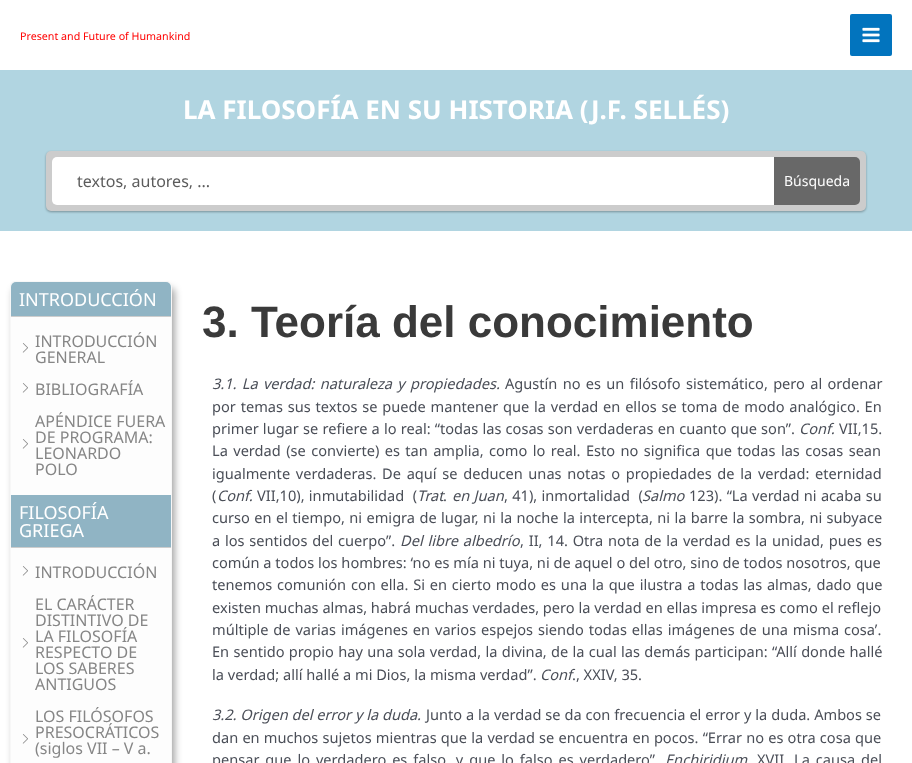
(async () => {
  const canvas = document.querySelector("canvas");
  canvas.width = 912;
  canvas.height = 763;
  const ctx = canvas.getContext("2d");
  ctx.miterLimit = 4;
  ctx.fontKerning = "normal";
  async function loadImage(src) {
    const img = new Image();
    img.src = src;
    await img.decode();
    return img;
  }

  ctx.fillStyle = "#ffffff";
  ctx.fillRect(0, 0, 912, 763);
  ctx.fillStyle = "#0274be";
  ctx.beginPath();
  ctx.roundRect(850, 14, 42, 42, 2);
  ctx.fill();
  ctx.drawImage(await loadImage("img/1.png"), 862, 27, 18, 16);
  ctx.fillStyle = "#b1d5e1";
  ctx.fillRect(0, 70, 912, 161);
  ctx.fillStyle = "rgba(0, 0, 0, 0.32)";
  ctx.filter = "blur(1px)";
  ctx.beginPath();
  ctx.roundRect(46, 152, 820, 60, 5);
  ctx.fill();
  ctx.filter = "none";
  ctx.fillStyle = "#cccccc";
  ctx.beginPath();
  ctx.roundRect(46, 151, 820, 60, 5);
  ctx.fill();
  ctx.fillStyle = "#ffffff";
  ctx.beginPath();
  ctx.roundRect(52, 157, 722, 48, [5, 0, 0, 5]);
  ctx.fill();
  ctx.fillStyle = "#686868";
  ctx.beginPath();
  ctx.roundRect(774, 157, 86, 48, [0, 5, 5, 0]);
  ctx.fill();
  ctx.fillStyle = "rgba(0, 0, 0, 0.34)";
  ctx.filter = "blur(3.5px)";
  ctx.beginPath();
  ctx.roundRect(13, 288, 162, 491, 5);
  ctx.fill();
  ctx.filter = "none";
  ctx.fillStyle = "#fdfdfd";
  ctx.beginPath();
  ctx.roundRect(10.5, 281.5, 161, 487, 4.5);
  ctx.fill();
  ctx.strokeStyle = "#f7f7f7";
  ctx.stroke();
  ctx.fillStyle = "#90b4c4";
  ctx.beginPath();
  ctx.roundRect(11, 282, 160, 35, [5, 5, 0, 0]);
  ctx.fill();
  ctx.fillStyle = "#cdcdcd";
  ctx.fillRect(11, 316, 160, 1);
  ctx.drawImage(await loadImage("img/2.png"), 22, 343, 6, 10);
  ctx.drawImage(await loadImage("img/2.png"), 22, 383, 6, 10);
  ctx.drawImage(await loadImage("img/2.png"), 22, 439, 6, 10);
  ctx.fillStyle = "#90b4c4";
  ctx.fillRect(11, 495, 160, 52);
  ctx.fillStyle = "#cdcdcd";
  ctx.fillRect(11, 547, 160, 1);
  ctx.drawImage(await loadImage("img/2.png"), 22, 566, 6, 10);
  ctx.drawImage(await loadImage("img/2.png"), 22, 638, 6, 10);
  ctx.drawImage(await loadImage("img/2.png"), 22, 734, 6, 10);
  ctx.font = "10.7px Noto Sans";
  ctx.fillStyle = "#ff0000";
  ctx.fillText("Present and Future of Humankind", 20, 40);
  ctx.font = "bold 26px Noto Sans";
  ctx.fillStyle = "#ffffff";
  ctx.fillText("LA FILOSOFÍA EN SU HISTORIA (J.F. SELLÉS)", 183, 119);
  ctx.font = "16px Noto Sans";
  ctx.fillStyle = "#5c5c5c";
  ctx.fillText("textos, autores, ...", 77, 187);
  ctx.font = "14px Noto Sans";
  ctx.fillStyle = "#ffffff";
  ctx.fillText("Búsqueda", 784, 186);
  ctx.font = "18px Noto Sans";
  ctx.fillText("INTRODUCCIÓN", 19, 306);
  ctx.font = "16px Noto Sans";
  ctx.fillStyle = "#868686";
  for (const [text, x, y] of [
    ["INTRODUCCIÓN", 35, 347],
    ["GENERAL", 35, 363],
    ["BIBLIOGRAFÍA", 35, 395],
    ["APÉNDICE FUERA", 35, 427],
    ["DE PROGRAMA:", 35, 443],
    ["LEONARDO", 35, 459],
    ["POLO", 35, 475],
  ]) {
    ctx.fillText(text, x, y);
  }
  ctx.font = "18px Noto Sans";
  ctx.fillStyle = "#ffffff";
  ctx.fillText("FILOSOFÍA", 19, 519);
  ctx.fillText("GRIEGA", 19, 537);
  ctx.font = "16px Noto Sans";
  ctx.fillStyle = "#868686";
  for (const [text, x, y] of [
    ["INTRODUCCIÓN", 35, 578],
    ["EL CARÁCTER", 35, 610],
    ["DISTINTIVO DE", 35, 626],
    ["LA FILOSOFÍA", 35, 642],
    ["RESPECTO DE", 35, 658],
    ["LOS SABERES", 35, 674],
    ["ANTIGUOS", 35, 690],
    ["LOS FILÓSOFOS", 35, 722],
    ["PRESOCRÁTICOS", 35, 738],
    ["(siglos VII – V a.", 35, 754],
  ]) {
    ctx.fillText(text, x, y);
  }
  ctx.font = "bold 44px Liberation Sans";
  ctx.fillStyle = "#3a3a3a";
  ctx.fillText("3. Teoría del conocimiento", 202, 337);
  ctx.wordSpacing = "1.5px";
  ctx.font = "italic 14.6px Noto Sans";
  ctx.fillStyle = "#4b4f58";
  ctx.fillText("3.1. La verdad: naturaleza y propiedades.", 212, 389);
  ctx.font = "14.6px Noto Sans";
  ctx.fillText("Agustín no es un filósofo sistemático, pero al ordenar", 505, 389);
  ctx.wordSpacing = "1px";
  ctx.fillText("por temas sus textos se puede mantener que la verdad en ellos se toma de modo analógico. En", 212, 412);
  ctx.wordSpacing = "0.4px";
  ctx.fillText("primer lugar se refiere a lo real: “todas las cosas son verdaderas en cuanto que son”.", 212, 434);
  ctx.wordSpacing = "0px";
  ctx.font = "italic 14.6px Noto Sans";
  ctx.fillText("Conf.", 799, 434);
  ctx.font = "14.6px Noto Sans";
  ctx.fillText("VII,15.", 839, 434);
  ctx.wordSpacing = "1.6px";
  ctx.fillText("La verdad (se convierte) es tan amplia, como lo real. Esto no significa que todas las cosas sean", 212, 456);
  ctx.wordSpacing = "1.9px";
  ctx.fillText("igualmente verdaderas. De aquí se deducen unas notas o propiedades de la verdad: eternidad", 212, 479);
  ctx.wordSpacing = "0px";
  ctx.fillText("(", 212, 501);
  ctx.font = "italic 14.6px Noto Sans";
  ctx.fillText("Conf.", 217, 501);
  ctx.wordSpacing = "0.5px";
  ctx.font = "14.6px Noto Sans";
  ctx.fillText("VII,10), inmutabilidad  (", 257, 501);
  ctx.wordSpacing = "0px";
  ctx.font = "italic 14.6px Noto Sans";
  ctx.fillText("Trat", 417, 501);
  ctx.wordSpacing = "0.5px";
  ctx.fillText("en Juan", 452, 501);
  ctx.font = "14.6px Noto Sans";
  ctx.fillText(", 41), inmortalidad  (", 504, 501);
  ctx.wordSpacing = "0px";
  ctx.font = "italic 14.6px Noto Sans";
  ctx.fillText("Salmo", 642, 501);
  ctx.wordSpacing = "0.5px";
  ctx.font = "14.6px Noto Sans";
  ctx.fillText("123). “La verdad ni acaba su", 689, 501);
  ctx.wordSpacing = "0px";
  ctx.fillText(".", 443, 501);
  ctx.wordSpacing = "0.6px";
  ctx.fillText("curso en el tiempo, ni emigra de lugar, ni la noche la intercepta, ni la barre la sombra, ni subyace", 212, 523);
  ctx.wordSpacing = "1px";
  ctx.fillText("a los sentidos del cuerpo”.", 212, 546);
  ctx.font = "italic 14.6px Noto Sans";
  ctx.fillText("Del libre albedrío", 400, 546);
  ctx.font = "14.6px Noto Sans";
  ctx.fillText(", II, 14. Otra nota de la verdad es la unidad, pues es", 520, 546);
  ctx.wordSpacing = "0px";
  ctx.fillText("común a todos los hombres: ‘no es mía ni tuya, ni de aquel o del otro, sino de todos nosotros, que", 212, 568);
  ctx.wordSpacing = "1px";
  ctx.fillText("tenemos comunión con ella. Si en cierto modo es una la que ilustra a todas las almas, dado que", 212, 590);
  ctx.wordSpacing = "0px";
  ctx.fillText("existen muchas almas, habrá muchas verdades, pero la verdad en ellas impresa es como el reflejo", 212, 613);
  ctx.wordSpacing = "1.1px";
  ctx.fillText("múltiple de varias imágenes en varios espejos siendo todas ellas imágenes de una misma cosa’.", 212, 635);
  ctx.wordSpacing = "0.5px";
  ctx.fillText("En sentido propio hay una sola verdad, la divina, de la cual las demás participan: “Allí donde hallé", 212, 657);
  ctx.wordSpacing = "0px";
  ctx.fillText("la verdad; allí hallé a mi Dios, la misma verdad”.", 212, 680);
  ctx.font = "italic 14.6px Noto Sans";
  ctx.fillText("Conf", 540, 680);
  ctx.font = "14.6px Noto Sans";
  ctx.fillText("., XXIV, 35.", 572, 680);
  ctx.font = "italic 14.6px Noto Sans";
  ctx.fillText("3.2. Origen del error y la duda.", 212, 720);
  ctx.wordSpacing = "0.1px";
  ctx.font = "14.6px Noto Sans";
  ctx.fillText("Junto a la verdad se da con frecuencia el error y la duda. Ambos se", 426, 720);
  ctx.wordSpacing = "0.4px";
  ctx.fillText("dan en muchos sujetos mientras que la verdad se encuentra en pocos. “Errar no es otra cosa que", 212, 743);
  ctx.wordSpacing = "2.1px";
  ctx.fillText("pensar que lo verdadero es falso, y que lo falso es verdadero”", 212, 765);
  ctx.wordSpacing = "0px";
  ctx.font = "italic 14.6px Noto Sans";
  ctx.fillText("Enchiridium", 665, 765);
  ctx.wordSpacing = "2.1px";
  ctx.font = "14.6px Noto Sans";
  ctx.fillText("XVII. La causa del", 757, 765);
})();
